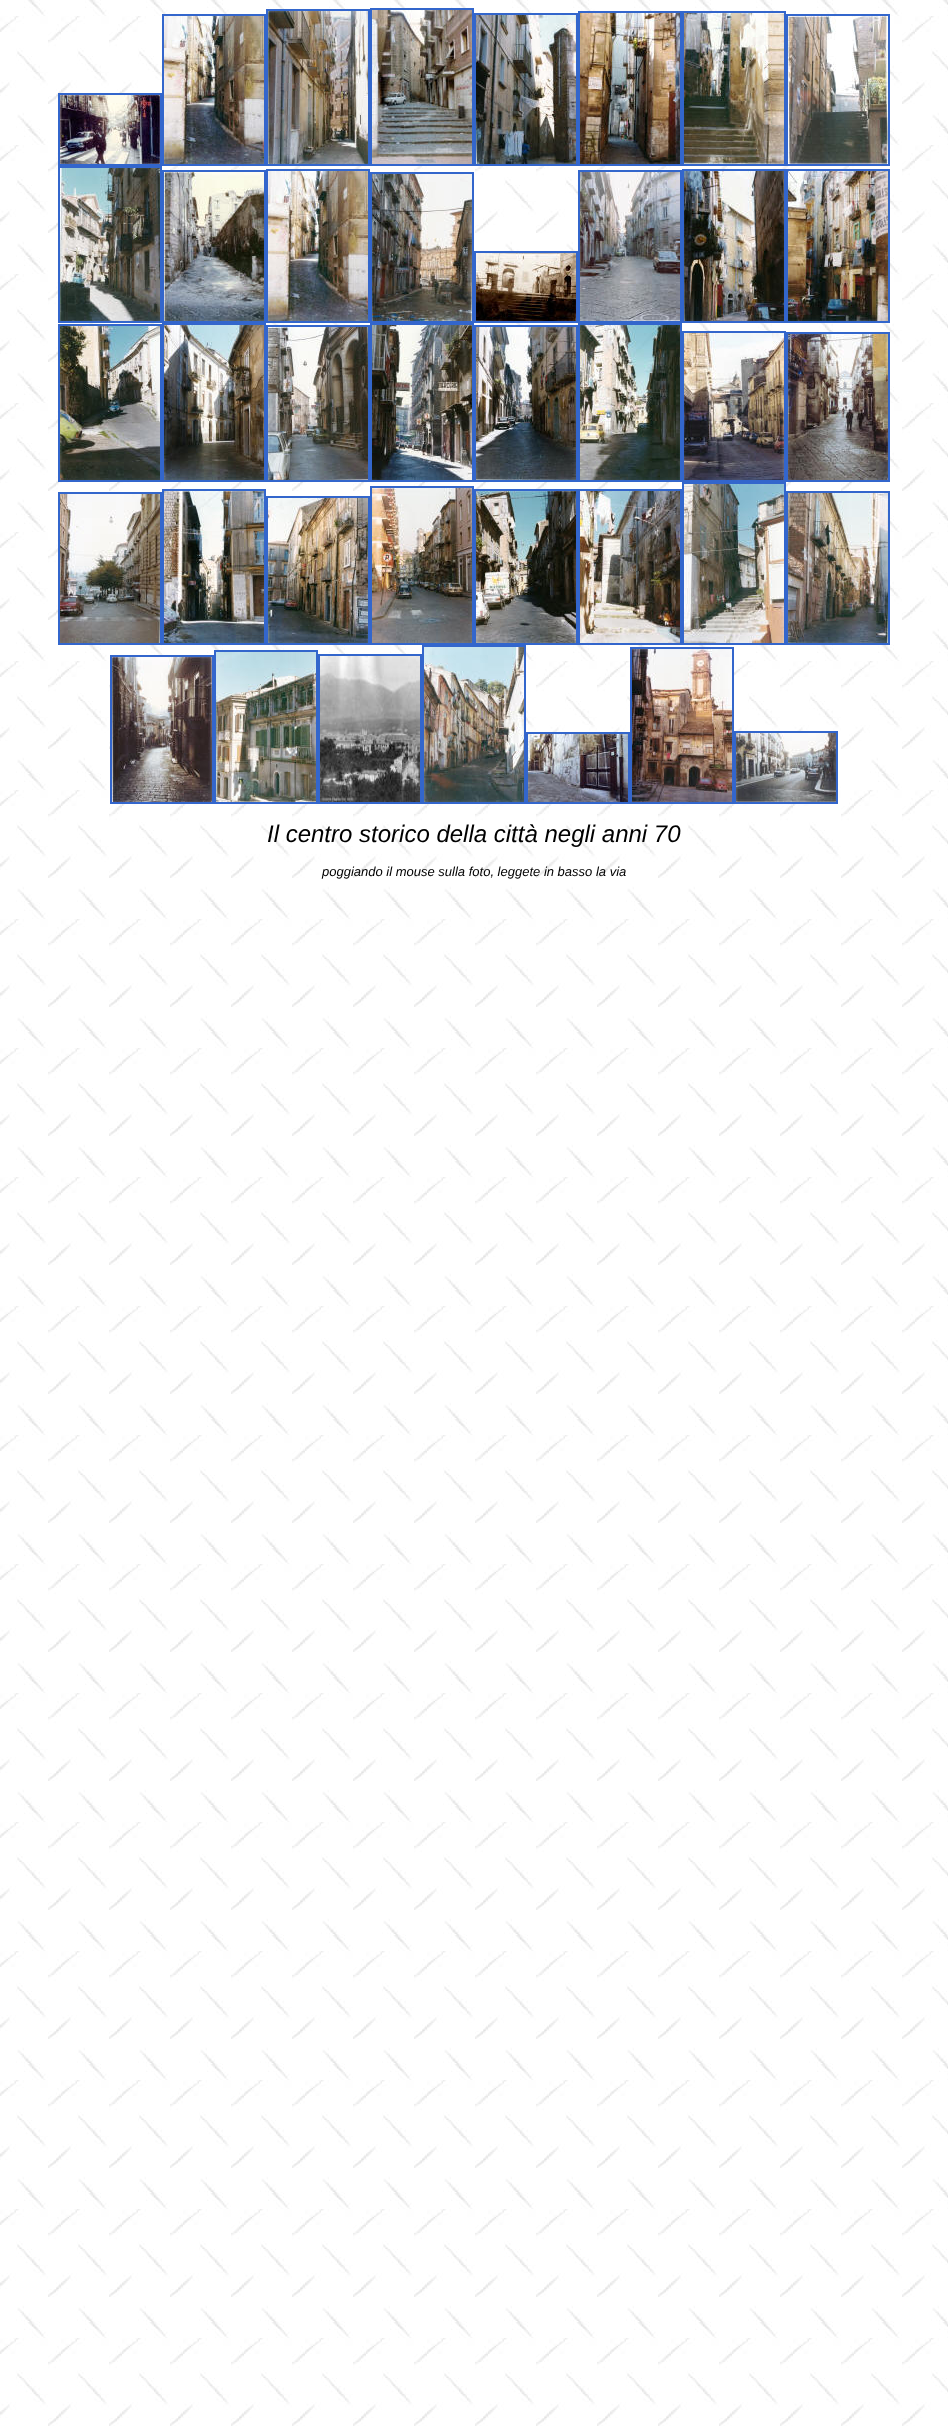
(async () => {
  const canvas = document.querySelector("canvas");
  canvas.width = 948;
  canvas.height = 2431;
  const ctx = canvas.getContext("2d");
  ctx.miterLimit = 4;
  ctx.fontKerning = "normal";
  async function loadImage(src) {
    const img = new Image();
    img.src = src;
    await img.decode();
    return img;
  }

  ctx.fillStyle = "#ffffff";
  ctx.fillRect(0, 0, 948, 2431);
  ctx.drawImage(await loadImage("img/1.png"), 0, 0, 948, 2426);
  ctx.strokeStyle = "#3366cc";
  ctx.lineWidth = 2;
  ctx.strokeRect(267, 10, 102, 155);
  ctx.strokeRect(371, 9, 102, 156);
  ctx.drawImage(await loadImage("img/2.png"), 268, 11, 100, 153);
  ctx.drawImage(await loadImage("img/3.png"), 372, 10, 100, 154);
  ctx.strokeRect(475, 14, 102, 151);
  ctx.strokeRect(579, 12, 102, 153);
  ctx.strokeRect(683, 12, 102, 153);
  ctx.strokeRect(163, 15, 102, 150);
  ctx.drawImage(await loadImage("img/4.png"), 476, 15, 100, 149);
  ctx.drawImage(await loadImage("img/5.png"), 580, 13, 100, 151);
  ctx.drawImage(await loadImage("img/6.png"), 684, 13, 100, 151);
  ctx.strokeRect(787, 15, 102, 150);
  ctx.strokeRect(59, 94, 102, 71);
  ctx.drawImage(await loadImage("img/7.png"), 164, 16, 100, 148);
  ctx.drawImage(await loadImage("img/8.png"), 788, 16, 100, 148);
  ctx.drawImage(await loadImage("img/9.png"), 60, 95, 100, 69);
  ctx.strokeRect(59, 167, 102, 155);
  ctx.drawImage(await loadImage("img/10.png"), 60, 168, 100, 153);
  ctx.strokeRect(163, 171, 102, 151);
  ctx.strokeRect(267, 170, 102, 152);
  ctx.strokeRect(579, 171, 102, 151);
  ctx.strokeRect(683, 170, 102, 152);
  ctx.strokeRect(787, 170, 102, 152);
  ctx.drawImage(await loadImage("img/11.png"), 164, 172, 100, 149);
  ctx.drawImage(await loadImage("img/12.png"), 268, 171, 100, 150);
  ctx.strokeRect(371, 173, 102, 149);
  ctx.drawImage(await loadImage("img/13.png"), 580, 172, 100, 149);
  ctx.drawImage(await loadImage("img/14.png"), 684, 171, 100, 150);
  ctx.drawImage(await loadImage("img/15.png"), 788, 171, 100, 150);
  ctx.drawImage(await loadImage("img/16.png"), 372, 174, 100, 147);
  ctx.strokeRect(475, 252, 102, 70);
  ctx.drawImage(await loadImage("img/17.png"), 476, 253, 100, 68);
  ctx.strokeRect(59, 325, 102, 156);
  ctx.strokeRect(163, 324, 102, 157);
  ctx.strokeRect(371, 324, 102, 157);
  ctx.strokeRect(579, 324, 102, 157);
  ctx.drawImage(await loadImage("img/18.png"), 60, 326, 100, 154);
  ctx.drawImage(await loadImage("img/19.png"), 164, 325, 100, 155);
  ctx.strokeRect(267, 326, 102, 155);
  ctx.drawImage(await loadImage("img/20.png"), 372, 325, 100, 155);
  ctx.strokeRect(475, 326, 102, 155);
  ctx.drawImage(await loadImage("img/21.png"), 580, 325, 100, 155);
  ctx.drawImage(await loadImage("img/22.png"), 268, 327, 100, 153);
  ctx.drawImage(await loadImage("img/23.png"), 476, 327, 100, 153);
  ctx.strokeRect(683, 332, 102, 149);
  ctx.strokeRect(787, 333, 102, 148);
  ctx.drawImage(await loadImage("img/24.png"), 684, 333, 100, 147);
  ctx.drawImage(await loadImage("img/25.png"), 788, 334, 100, 146);
  ctx.strokeRect(683, 483, 102, 161);
  ctx.strokeRect(371, 487, 102, 157);
  ctx.drawImage(await loadImage("img/26.png"), 684, 484, 100, 159);
  ctx.strokeRect(163, 490, 102, 154);
  ctx.drawImage(await loadImage("img/27.png"), 372, 488, 100, 155);
  ctx.strokeRect(475, 490, 102, 154);
  ctx.strokeRect(579, 490, 102, 154);
  ctx.strokeRect(59, 493, 102, 151);
  ctx.drawImage(await loadImage("img/28.png"), 164, 491, 100, 152);
  ctx.drawImage(await loadImage("img/29.png"), 476, 491, 100, 152);
  ctx.drawImage(await loadImage("img/30.png"), 580, 491, 100, 152);
  ctx.strokeRect(787, 492, 102, 152);
  ctx.drawImage(await loadImage("img/31.png"), 60, 494, 100, 149);
  ctx.strokeRect(267, 497, 102, 147);
  ctx.drawImage(await loadImage("img/32.png"), 788, 493, 100, 150);
  ctx.drawImage(await loadImage("img/33.png"), 268, 498, 100, 145);
  ctx.strokeRect(423, 646, 102, 157);
  ctx.drawImage(await loadImage("img/34.png"), 424, 647, 100, 155);
  ctx.strokeRect(631, 648, 102, 155);
  ctx.strokeRect(215, 651, 102, 152);
  ctx.drawImage(await loadImage("img/35.png"), 632, 649, 100, 153);
  ctx.strokeRect(111, 656, 102, 147);
  ctx.drawImage(await loadImage("img/36.png"), 216, 652, 100, 150);
  ctx.strokeRect(319, 655, 102, 148);
  ctx.drawImage(await loadImage("img/37.png"), 112, 657, 100, 145);
  ctx.drawImage(await loadImage("img/38.png"), 320, 656, 100, 146);
  ctx.strokeRect(527, 733, 102, 70);
  ctx.strokeRect(735, 732, 102, 71);
  ctx.drawImage(await loadImage("img/39.png"), 528, 734, 100, 68);
  ctx.drawImage(await loadImage("img/40.png"), 736, 733, 100, 69);
  ctx.font = "italic 24px Liberation Sans";
  ctx.fillStyle = "#000000";
  ctx.fillText("Il centro storico della città negli anni 70", 267, 842);
  ctx.font = "italic 13px Liberation Sans";
  ctx.fillText("poggiando il mouse sulla foto, leggete in basso la via", 322, 876);
})();
